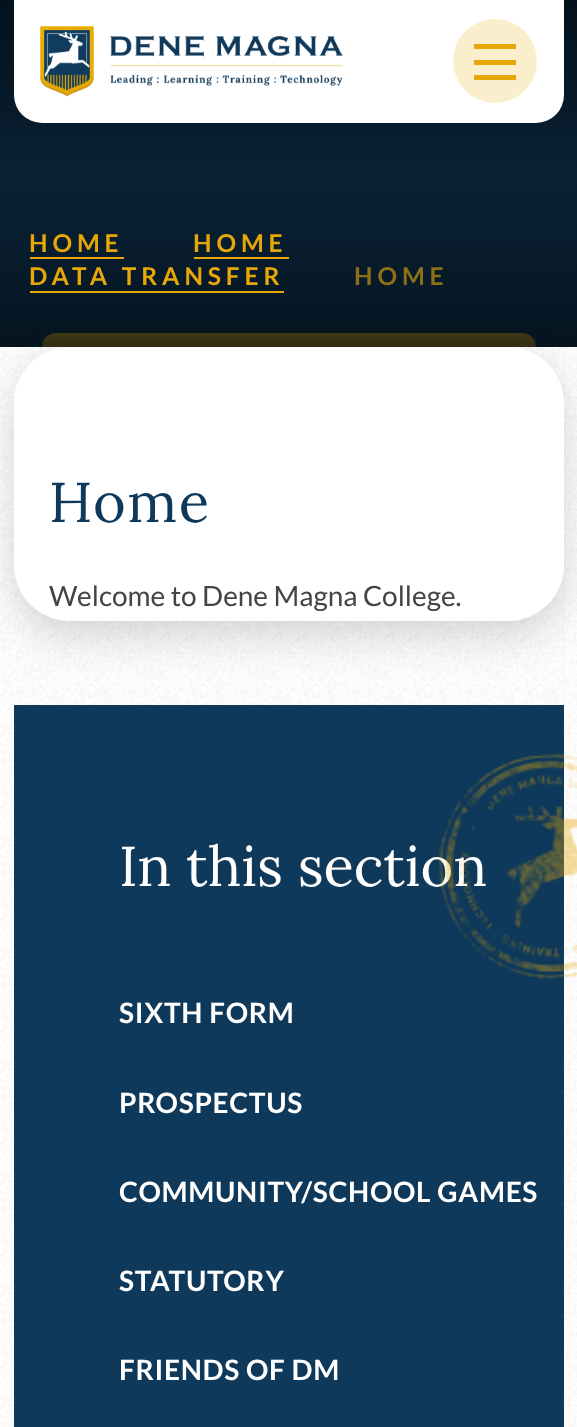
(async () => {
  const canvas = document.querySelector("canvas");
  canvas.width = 577;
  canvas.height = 1427;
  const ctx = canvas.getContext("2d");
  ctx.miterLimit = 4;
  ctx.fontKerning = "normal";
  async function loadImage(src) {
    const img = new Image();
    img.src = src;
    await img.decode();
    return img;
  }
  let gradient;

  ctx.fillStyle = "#ffffff";
  ctx.fillRect(0, 0, 577, 1427);
  ctx.drawImage(await loadImage("img/1.png"), 0, 347, 577, 1080);
  ctx.fillStyle = "#030f18";
  ctx.fillRect(0, 0, 577, 342);
  gradient = ctx.createLinearGradient(289, 347, 289, -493);
  gradient.addColorStop(0, "#0b263c");
  gradient.addColorStop(1, "rgba(11, 38, 60, 0)");
  ctx.fillStyle = gradient;
  ctx.fillRect(0, 0, 577, 347);
  ctx.fillStyle = "#eeeeee";
  ctx.fillRect(563, 347, 1, 358);
  ctx.drawImage(await loadImage("img/3.png"), 14, 347, 550, 358);
  ctx.fillStyle = "rgba(0, 0, 0, 0.16)";
  ctx.filter = "blur(21px)";
  ctx.beginPath();
  ctx.roundRect(14, 361, 550, 274, 56);
  ctx.fill();
  ctx.filter = "none";
  ctx.fillStyle = "#e7a807";
  ctx.beginPath();
  ctx.roundRect(42, 333, 494, 14, [14, 14, 0, 0]);
  ctx.fill();
  gradient = ctx.createLinearGradient(289, 347, 289, 0);
  gradient.addColorStop(0, "rgba(3, 15, 24, 0.8)");
  gradient.addColorStop(0.5, "rgba(3, 15, 24, 0)");
  gradient.addColorStop(1, "rgba(3, 15, 24, 0.8)");
  ctx.fillStyle = gradient;
  ctx.fillRect(0, 0, 577, 347);
  ctx.fillStyle = "#ffffff";
  ctx.beginPath();
  ctx.roundRect(14, 0, 550, 123, [0, 0, 28, 28]);
  ctx.fill();
  ctx.drawImage(await loadImage("img/2.png"), 40, 26, 303, 71);
  ctx.fillStyle = "#faeecd";
  ctx.beginPath();
  ctx.arc(495, 61, 42, 0, Math.PI * 2);
  ctx.fill();
  for (const [x, y, w, h, color] of [
    [474, 44, 42, 5, "#e7a807"],
    [474, 60, 42, 5, "#e7a807"],
    [474, 75, 42, 5, "#e7a807"],
    [30, 257, 94, 2, "#e7a807"],
    [194, 257, 95, 2, "#e7a807"],
    [30, 291, 254, 2, "#e7a807"],
  ]) {
    ctx.fillStyle = color;
    ctx.fillRect(x, y, w, h);
  }
  ctx.fillStyle = "#ffffff";
  ctx.beginPath();
  ctx.roundRect(14, 347, 550, 274, 56);
  ctx.fill();
  ctx.fillStyle = "#0f395a";
  ctx.fillRect(14, 705, 550, 722);
  ctx.letterSpacing = "4.9px";
  ctx.font = "bold 24.5px Lato";
  ctx.fillStyle = "#e7a807";
  for (const [text, x, y] of [
    ["HOME", 29, 252],
    ["HOME", 193, 252],
    ["DATA TRANSFER", 29, 285],
  ]) {
    ctx.fillText(text, x, y);
  }
  ctx.fillStyle = "#8d6f15";
  ctx.fillText("HOME", 354, 285);
  ctx.letterSpacing = "1.5px";
  ctx.font = "56px Lora";
  ctx.fillStyle = "#0f395a";
  ctx.fillText("Home", 49, 522);
  ctx.letterSpacing = "0px";
  ctx.font = "28px Lato";
  ctx.fillStyle = "#444444";
  ctx.fillText("Welcome to Dene Magna College.", 49, 606);
  ctx.font = "56px Lora";
  ctx.fillStyle = "#ffffff";
  ctx.fillText("In this section", 119, 886);
  ctx.drawImage(await loadImage("img/4.png"), 439, 754, 138, 225);
  ctx.letterSpacing = "0.7px";
  ctx.font = "bold 28px Lato";
  for (const [text, x, y] of [
    ["SIXTH FORM", 119, 1023],
    ["PROSPECTUS", 119, 1113],
    ["COMMUNITY/SCHOOL GAMES", 119, 1202],
    ["STATUTORY", 119, 1291],
    ["FRIENDS OF DM", 119, 1380],
  ]) {
    ctx.fillText(text, x, y);
  }
})();
